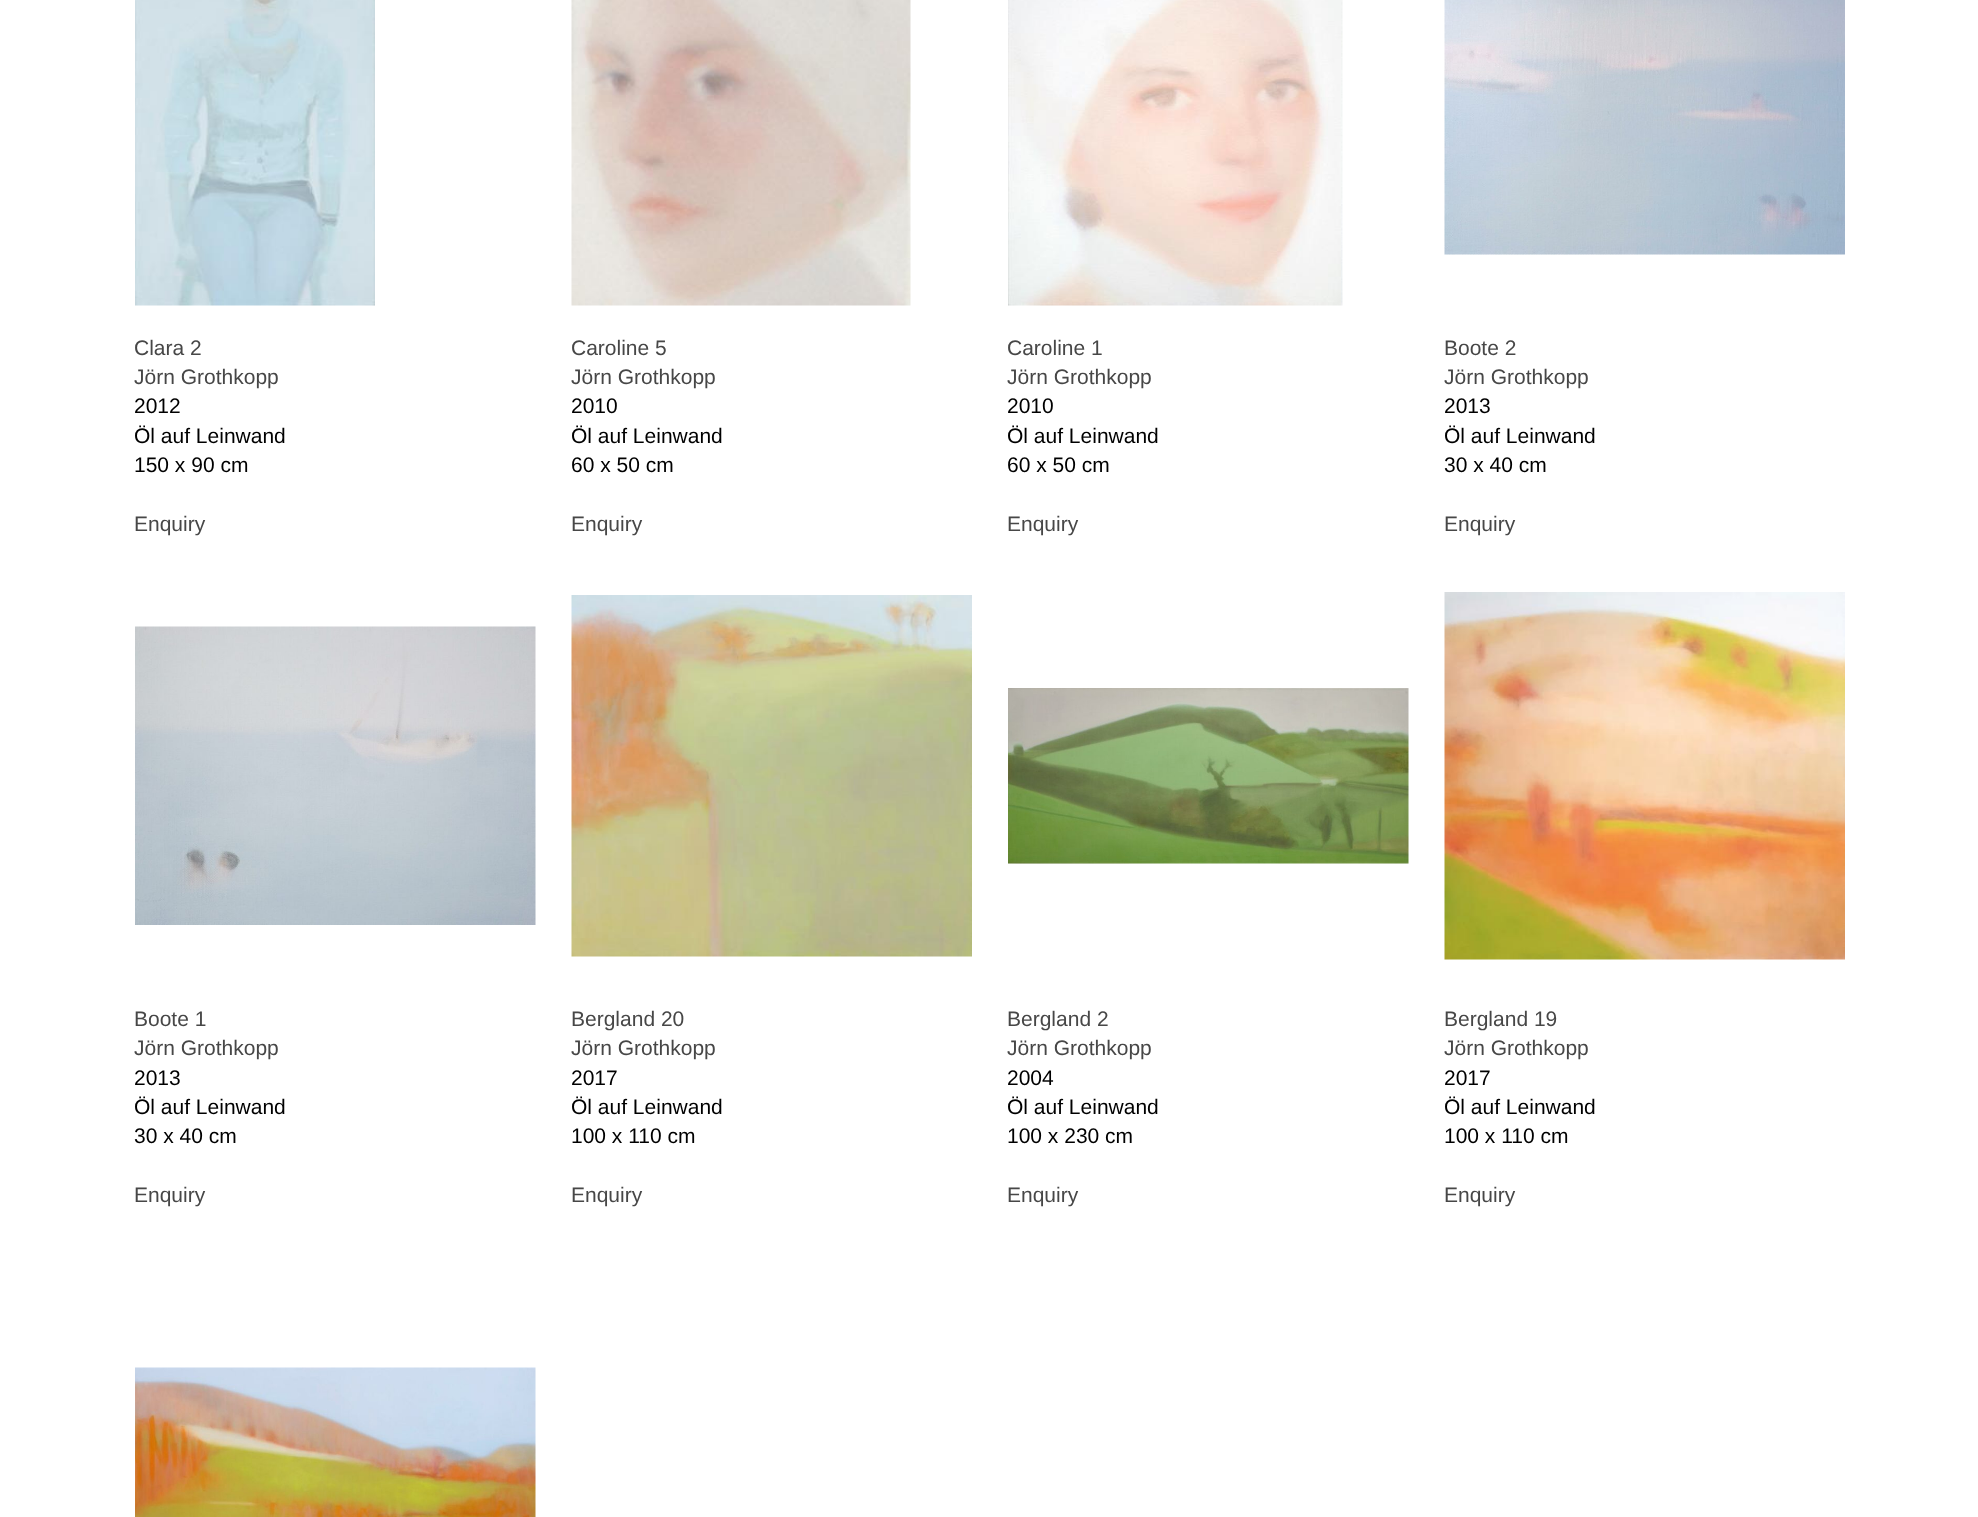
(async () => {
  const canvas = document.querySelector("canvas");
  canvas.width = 1978;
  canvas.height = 1517;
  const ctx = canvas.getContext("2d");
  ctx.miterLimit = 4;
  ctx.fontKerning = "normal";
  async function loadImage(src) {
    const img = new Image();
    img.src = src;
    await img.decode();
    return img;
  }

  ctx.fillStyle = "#ffffff";
  ctx.fillRect(0, 0, 1978, 1517);
  ctx.drawImage(await loadImage("img/1.png"), 135, 0, 240, 306);
  ctx.drawImage(await loadImage("img/2.png"), 571, 0, 340, 306);
  ctx.drawImage(await loadImage("img/3.png"), 1008, 0, 335, 306);
  ctx.drawImage(await loadImage("img/4.png"), 1444, 0, 401, 255);
  ctx.drawImage(await loadImage("img/5.png"), 135, 626, 401, 299);
  ctx.drawImage(await loadImage("img/6.png"), 571, 595, 401, 362);
  ctx.drawImage(await loadImage("img/7.png"), 1008, 688, 401, 176);
  ctx.drawImage(await loadImage("img/8.png"), 1444, 592, 401, 368);
  ctx.drawImage(await loadImage("img/9.png"), 135, 1367, 401, 150);
  ctx.font = "21px Liberation Sans";
  ctx.fillStyle = "#474747";
  ctx.fillText("Clara 2", 134, 355);
  ctx.fillText("Jörn Grothkopp", 134, 384);
  ctx.fillStyle = "#000000";
  for (const [text, x, y] of [
    ["2012", 134, 413],
    ["Öl auf Leinwand", 134, 443],
    ["150 x 90 cm", 134, 472],
  ]) {
    ctx.fillText(text, x, y);
  }
  ctx.fillStyle = "#474747";
  for (const [text, x, y] of [
    ["Enquiry", 134, 531],
    ["Caroline 5", 571, 355],
    ["Jörn Grothkopp", 571, 384],
  ]) {
    ctx.fillText(text, x, y);
  }
  ctx.fillStyle = "#000000";
  for (const [text, x, y] of [
    ["2010", 571, 413],
    ["Öl auf Leinwand", 571, 443],
    ["60 x 50 cm", 571, 472],
  ]) {
    ctx.fillText(text, x, y);
  }
  ctx.fillStyle = "#474747";
  for (const [text, x, y] of [
    ["Enquiry", 571, 531],
    ["Caroline 1", 1007, 355],
    ["Jörn Grothkopp", 1007, 384],
  ]) {
    ctx.fillText(text, x, y);
  }
  ctx.fillStyle = "#000000";
  for (const [text, x, y] of [
    ["2010", 1007, 413],
    ["Öl auf Leinwand", 1007, 443],
    ["60 x 50 cm", 1007, 472],
  ]) {
    ctx.fillText(text, x, y);
  }
  ctx.fillStyle = "#474747";
  for (const [text, x, y] of [
    ["Enquiry", 1007, 531],
    ["Boote 2", 1444, 355],
    ["Jörn Grothkopp", 1444, 384],
  ]) {
    ctx.fillText(text, x, y);
  }
  ctx.fillStyle = "#000000";
  for (const [text, x, y] of [
    ["2013", 1444, 413],
    ["Öl auf Leinwand", 1444, 443],
    ["30 x 40 cm", 1444, 472],
  ]) {
    ctx.fillText(text, x, y);
  }
  ctx.fillStyle = "#474747";
  for (const [text, x, y] of [
    ["Enquiry", 1444, 531],
    ["Boote 1", 134, 1026],
    ["Jörn Grothkopp", 134, 1055],
  ]) {
    ctx.fillText(text, x, y);
  }
  ctx.fillStyle = "#000000";
  for (const [text, x, y] of [
    ["2013", 134, 1085],
    ["Öl auf Leinwand", 134, 1114],
    ["30 x 40 cm", 134, 1143],
  ]) {
    ctx.fillText(text, x, y);
  }
  ctx.fillStyle = "#474747";
  for (const [text, x, y] of [
    ["Enquiry", 134, 1202],
    ["Bergland 20", 571, 1026],
    ["Jörn Grothkopp", 571, 1055],
  ]) {
    ctx.fillText(text, x, y);
  }
  ctx.fillStyle = "#000000";
  for (const [text, x, y] of [
    ["2017", 571, 1085],
    ["Öl auf Leinwand", 571, 1114],
    ["100 x 110 cm", 571, 1143],
  ]) {
    ctx.fillText(text, x, y);
  }
  ctx.fillStyle = "#474747";
  for (const [text, x, y] of [
    ["Enquiry", 571, 1202],
    ["Bergland 2", 1007, 1026],
    ["Jörn Grothkopp", 1007, 1055],
  ]) {
    ctx.fillText(text, x, y);
  }
  ctx.fillStyle = "#000000";
  for (const [text, x, y] of [
    ["2004", 1007, 1085],
    ["Öl auf Leinwand", 1007, 1114],
    ["100 x 230 cm", 1007, 1143],
  ]) {
    ctx.fillText(text, x, y);
  }
  ctx.fillStyle = "#474747";
  for (const [text, x, y] of [
    ["Enquiry", 1007, 1202],
    ["Bergland 19", 1444, 1026],
    ["Jörn Grothkopp", 1444, 1055],
  ]) {
    ctx.fillText(text, x, y);
  }
  ctx.fillStyle = "#000000";
  for (const [text, x, y] of [
    ["2017", 1444, 1085],
    ["Öl auf Leinwand", 1444, 1114],
    ["100 x 110 cm", 1444, 1143],
  ]) {
    ctx.fillText(text, x, y);
  }
  ctx.fillStyle = "#474747";
  ctx.fillText("Enquiry", 1444, 1202);
})();
